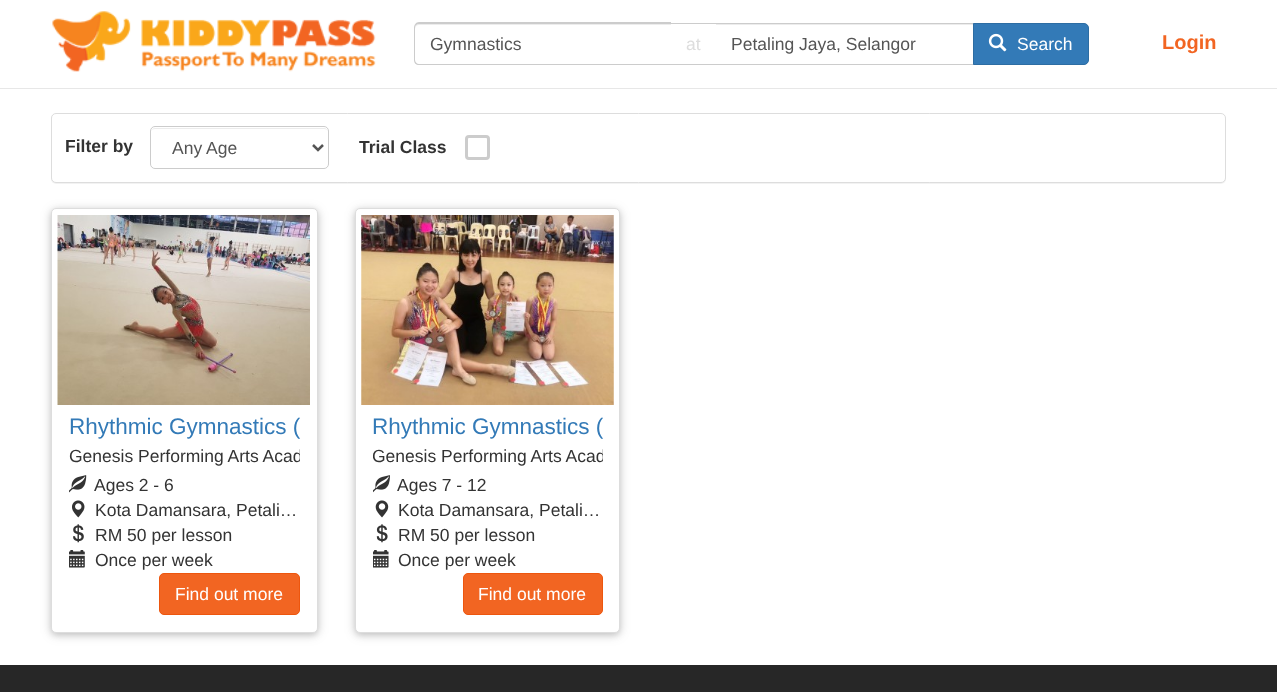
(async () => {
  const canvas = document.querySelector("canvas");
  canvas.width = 1277;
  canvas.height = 692;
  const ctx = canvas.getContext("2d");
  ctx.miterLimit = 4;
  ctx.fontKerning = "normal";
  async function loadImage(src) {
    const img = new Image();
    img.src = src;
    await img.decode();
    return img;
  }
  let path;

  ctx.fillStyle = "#ffffff";
  ctx.fillRect(0, 0, 1277, 692);
  ctx.fillStyle = "#e7e7e7";
  ctx.fillRect(0, 88, 1277, 1);
  ctx.drawImage(await loadImage("img/1.png"), 52, 11, 324, 61);
  ctx.fillStyle = "#ececec";
  path = new Path2D("M419 25H671V24H419C417 24 415 26 415 28V29C415 27 417 25 419 25Z");
  ctx.fill(path);
  ctx.fillStyle = "#cccccc";
  path = new Path2D("M419 22H671V65H419C416 65 414 63 414 60V28C414 25 416 22 419 22ZM419 24H671V64H419C417 64 415 62 415 60V28C415 25 417 24 419 24Z");
  ctx.fill(path, "evenodd");
  for (const [x, y, w, h, color] of [
    [671, 23, 303, 1, "#cccccc"],
    [671, 64, 303, 1, "#cccccc"],
    [716, 24, 257, 1, "#ececec"],
  ]) {
    ctx.fillStyle = color;
    ctx.fillRect(x, y, w, h);
  }
  ctx.fillStyle = "#337ab7";
  ctx.beginPath();
  ctx.roundRect(973.5, 23.5, 115, 41, [0, 4.5, 4.5, 0]);
  ctx.fill();
  ctx.strokeStyle = "#2d6da3";
  ctx.stroke();
  ctx.drawImage(await loadImage("img/2.png"), 988, 33, 19, 19);
  ctx.fillStyle = "rgba(0, 0, 0, 0.05)";
  ctx.filter = "blur(0.5px)";
  ctx.beginPath();
  ctx.roundRect(51, 114, 1175, 70, 5);
  ctx.fill();
  ctx.filter = "none";
  ctx.fillStyle = "#ffffff";
  ctx.beginPath();
  ctx.roundRect(51.5, 113.5, 1174, 69, 4.5);
  ctx.fill();
  ctx.strokeStyle = "#dddddd";
  ctx.stroke();
  ctx.fillStyle = "#ececec";
  path = new Path2D("M155 129H324C326 129 328 130 328 132C328 130 326 128 324 128H155C153 128 151 130 151 132C151 130 153 129 155 129Z");
  ctx.fill(path);
  ctx.beginPath();
  ctx.roundRect(150.5, 126.5, 178, 42, 4.5);
  ctx.strokeStyle = "#cccccc";
  ctx.stroke();
  path = new Path2D("M313 145L318 150L323 145");
  ctx.strokeStyle = "#555555";
  ctx.lineWidth = 2.5;
  ctx.stroke(path);
  ctx.beginPath();
  ctx.roundRect(466.5, 136.5, 22, 22, 2.5);
  ctx.strokeStyle = "#cccccc";
  ctx.lineWidth = 3;
  ctx.stroke();
  ctx.fillStyle = "rgba(0, 0, 0, 0.12)";
  ctx.filter = "blur(6px)";
  ctx.beginPath();
  ctx.roundRect(51, 210, 267, 425, 5);
  ctx.fill();
  ctx.filter = "none";
  ctx.fillStyle = "rgba(0, 0, 0, 0.16)";
  ctx.filter = "blur(3px)";
  ctx.beginPath();
  ctx.roundRect(51, 210, 267, 425, 5);
  ctx.fill();
  ctx.filter = "none";
  ctx.fillStyle = "#ffffff";
  ctx.beginPath();
  ctx.roundRect(51.5, 208.5, 266, 424, 4.5);
  ctx.fill();
  ctx.strokeStyle = "#dddddd";
  ctx.lineWidth = 1;
  ctx.stroke();
  ctx.drawImage(await loadImage("img/3.png"), 57, 215, 253, 190);
  ctx.drawImage(await loadImage("img/4.png"), 69, 475, 18, 18);
  ctx.drawImage(await loadImage("img/5.png"), 72, 500, 13, 18);
  ctx.drawImage(await loadImage("img/6.png"), 73, 524, 11, 19);
  ctx.drawImage(await loadImage("img/7.png"), 69, 550, 16, 18);
  ctx.fillStyle = "#f26522";
  ctx.beginPath();
  ctx.roundRect(159.5, 573.5, 140, 41, 4.5);
  ctx.fill();
  ctx.strokeStyle = "#ed560e";
  ctx.stroke();
  ctx.fillStyle = "rgba(0, 0, 0, 0.12)";
  ctx.filter = "blur(6px)";
  ctx.beginPath();
  ctx.roundRect(355, 210, 265, 425, 5);
  ctx.fill();
  ctx.filter = "none";
  ctx.fillStyle = "rgba(0, 0, 0, 0.16)";
  ctx.filter = "blur(3px)";
  ctx.beginPath();
  ctx.roundRect(355, 210, 265, 425, 5);
  ctx.fill();
  ctx.filter = "none";
  ctx.fillStyle = "#ffffff";
  ctx.beginPath();
  ctx.roundRect(355.5, 208.5, 264, 424, 4.5);
  ctx.fill();
  ctx.strokeStyle = "#dddddd";
  ctx.stroke();
  ctx.drawImage(await loadImage("img/8.png"), 361, 215, 253, 190);
  ctx.drawImage(await loadImage("img/9.png"), 373, 475, 17, 18);
  ctx.drawImage(await loadImage("img/10.png"), 375, 500, 14, 18);
  ctx.drawImage(await loadImage("img/11.png"), 376, 524, 12, 19);
  ctx.drawImage(await loadImage("img/12.png"), 373, 550, 16, 18);
  ctx.fillStyle = "#f26522";
  ctx.beginPath();
  ctx.roundRect(463.5, 573.5, 139, 41, 4.5);
  ctx.fill();
  ctx.strokeStyle = "#ed560e";
  ctx.stroke();
  ctx.fillStyle = "#272727";
  ctx.fillRect(0, 665, 1277, 27);
  ctx.font = "17.5px Liberation Sans";
  ctx.fillStyle = "#555555";
  ctx.fillText("Gymnastics", 430, 50);
  ctx.fillStyle = "#dddddd";
  ctx.fillText("at", 686, 50);
  ctx.fillStyle = "#555555";
  ctx.fillText("Petaling Jaya, Selangor", 731, 50);
  ctx.fillStyle = "#ffffff";
  ctx.fillText("Search", 1017, 50);
  ctx.font = "bold 20px Liberation Sans";
  ctx.fillStyle = "#f26522";
  ctx.fillText("Login", 1162, 49);
  ctx.font = "bold 17.5px Liberation Sans";
  ctx.fillStyle = "#333333";
  ctx.fillText("Filter by", 65, 152);
  ctx.font = "17.5px Liberation Sans";
  ctx.fillStyle = "#555555";
  ctx.fillText("Any Age", 172, 154);
  ctx.font = "bold 17.5px Liberation Sans";
  ctx.fillStyle = "#333333";
  ctx.fillText("Trial Class", 359, 153);
  ctx.font = "22.5px Liberation Sans";
  ctx.fillStyle = "#337ab7";
  ctx.fillText("Rhythmic Gymnastics (", 69, 434);
  ctx.save();
  ctx.beginPath();
  ctx.rect(69, 446, 231, 27);
  ctx.clip();
  ctx.font = "17.5px Liberation Sans";
  ctx.fillStyle = "#333333";
  ctx.fillText("Genesis Performing Arts Acad", 69, 462);
  ctx.restore();
  ctx.font = "17.5px Liberation Sans";
  ctx.fillStyle = "#333333";
  for (const [text, x, y] of [
    ["Ages 2 - 6", 94, 491],
    ["Kota Damansara, Petali…", 95, 516],
    ["RM 50 per lesson", 95, 541],
    ["Once per week", 95, 566],
  ]) {
    ctx.fillText(text, x, y);
  }
  ctx.fillStyle = "#ffffff";
  ctx.fillText("Find out more", 175, 600);
  ctx.font = "22.5px Liberation Sans";
  ctx.fillStyle = "#337ab7";
  ctx.fillText("Rhythmic Gymnastics (", 372, 434);
  ctx.save();
  ctx.beginPath();
  ctx.rect(373, 446, 230, 27);
  ctx.clip();
  ctx.font = "17.5px Liberation Sans";
  ctx.fillStyle = "#333333";
  ctx.fillText("Genesis Performing Arts Acad", 372, 462);
  ctx.restore();
  ctx.font = "17.5px Liberation Sans";
  ctx.fillStyle = "#333333";
  for (const [text, x, y] of [
    ["Ages 7 - 12", 397, 491],
    ["Kota Damansara, Petali…", 398, 516],
    ["RM 50 per lesson", 398, 541],
    ["Once per week", 398, 566],
  ]) {
    ctx.fillText(text, x, y);
  }
  ctx.fillStyle = "#ffffff";
  ctx.fillText("Find out more", 478, 600);
})();
